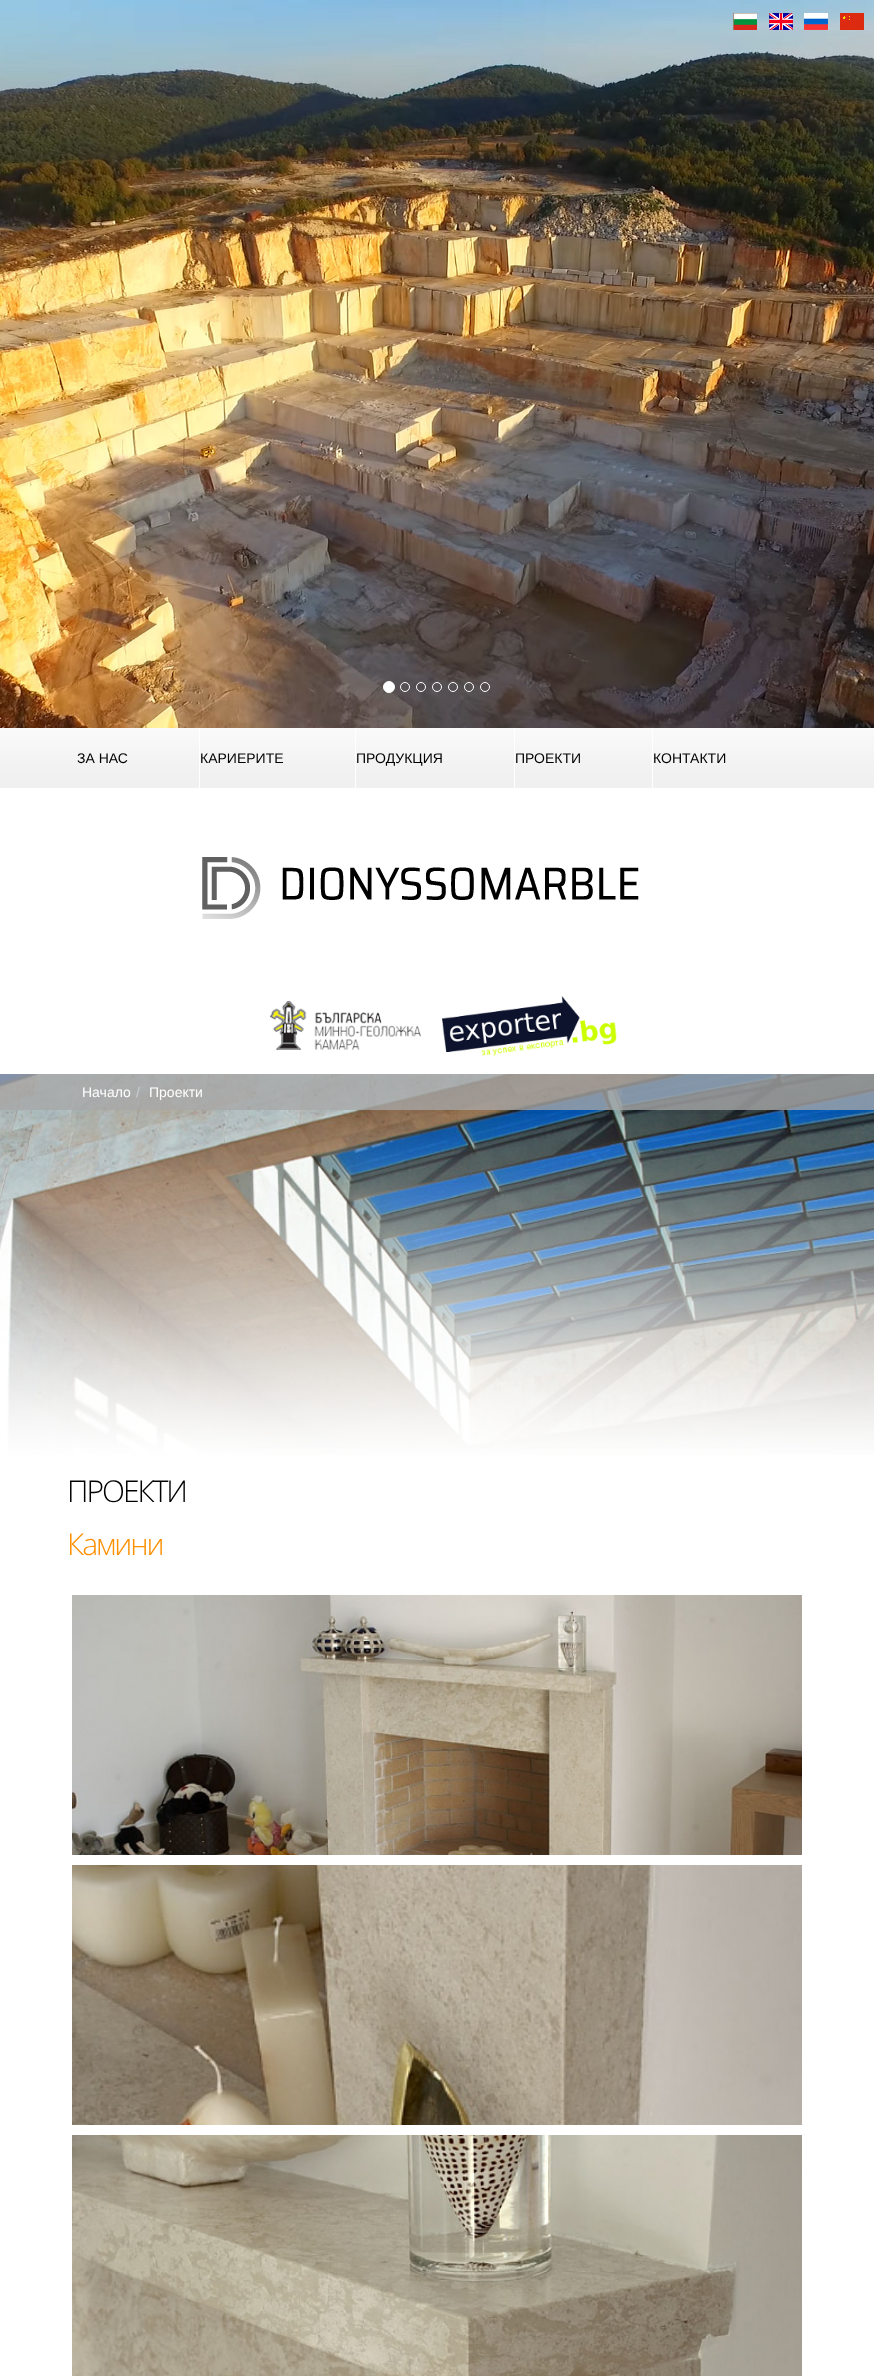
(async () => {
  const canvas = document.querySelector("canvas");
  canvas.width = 874;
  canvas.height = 2376;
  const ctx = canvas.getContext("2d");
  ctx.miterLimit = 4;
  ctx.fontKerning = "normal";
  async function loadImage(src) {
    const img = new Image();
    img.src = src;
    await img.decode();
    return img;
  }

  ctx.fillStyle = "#ffffff";
  ctx.fillRect(0, 0, 874, 2376);
  ctx.drawImage(await loadImage("img/1.png"), 0, 0, 874, 728);
  ctx.beginPath();
  ctx.arc(389, 687, 5.5, 0, Math.PI * 2);
  ctx.fill();
  ctx.strokeStyle = "#ffffff";
  ctx.stroke();
  ctx.beginPath();
  ctx.arc(405, 687, 4.5, 0, Math.PI * 2);
  ctx.stroke();
  ctx.beginPath();
  ctx.arc(421, 687, 4.5, 0, Math.PI * 2);
  ctx.stroke();
  ctx.beginPath();
  ctx.arc(437, 687, 4.5, 0, Math.PI * 2);
  ctx.stroke();
  ctx.beginPath();
  ctx.arc(453, 687, 4.5, 0, Math.PI * 2);
  ctx.stroke();
  ctx.beginPath();
  ctx.arc(469, 687, 4.5, 0, Math.PI * 2);
  ctx.stroke();
  ctx.beginPath();
  ctx.arc(485, 687, 4.5, 0, Math.PI * 2);
  ctx.stroke();
  ctx.drawImage(await loadImage("img/2.png"), 733, 13, 24, 17);
  ctx.drawImage(await loadImage("img/3.png"), 769, 13, 24, 17);
  ctx.drawImage(await loadImage("img/4.png"), 804, 13, 24, 17);
  ctx.drawImage(await loadImage("img/5.png"), 840, 13, 24, 17);
  ctx.drawImage(await loadImage("img/6.png"), 0, 728, 874, 60);
  for (const [x, y, w, h, color] of [
    [199, 728, 1, 60, "#ffffff"],
    [355, 728, 1, 60, "#ffffff"],
    [514, 728, 1, 60, "#ffffff"],
    [652, 728, 1, 60, "#ffffff"],
  ]) {
    ctx.fillStyle = color;
    ctx.fillRect(x, y, w, h);
  }
  ctx.drawImage(await loadImage("img/7.png"), 202, 857, 437, 62);
  ctx.drawImage(await loadImage("img/8.png"), 270, 1001, 151, 49);
  ctx.drawImage(await loadImage("img/9.png"), 442, 996, 175, 60);
  ctx.drawImage(await loadImage("img/10.png"), 0, 1074, 874, 381);
  ctx.drawImage(await loadImage("img/11.png"), 0, 1114, 874, 345);
  ctx.fillStyle = "rgba(168, 168, 168, 0.78)";
  ctx.fillRect(0, 1074, 874, 36);
  ctx.drawImage(await loadImage("img/12.png"), 72, 1595, 730, 260);
  ctx.drawImage(await loadImage("img/13.png"), 72, 1865, 730, 260);
  ctx.drawImage(await loadImage("img/14.png"), 72, 2135, 730, 241);
  ctx.font = "14px Liberation Sans";
  ctx.fillStyle = "#000000";
  for (const [text, x, y] of [
    ["ЗА НАС", 77, 763],
    ["КАРИЕРИТЕ", 200, 763],
    ["ПРОДУКЦИЯ", 356, 763],
    ["ПРОЕКТИ", 515, 763],
    ["КОНТАКТИ", 653, 763],
  ]) {
    ctx.fillText(text, x, y);
  }
  ctx.fillStyle = "#ffffff";
  ctx.fillText("Начало", 82, 1097);
  ctx.fillStyle = "#cccccc";
  ctx.fillText("/", 136, 1097);
  ctx.fillStyle = "#ffffff";
  ctx.fillText("Проекти", 149, 1097);
  ctx.letterSpacing = "-2px";
  ctx.font = "300 30px Open Sans";
  ctx.fillStyle = "#000000";
  ctx.fillText("ПРОЕКТИ", 67, 1502);
  ctx.fillStyle = "#fd8f00";
  ctx.fillText("Камини", 67, 1555);
})();
